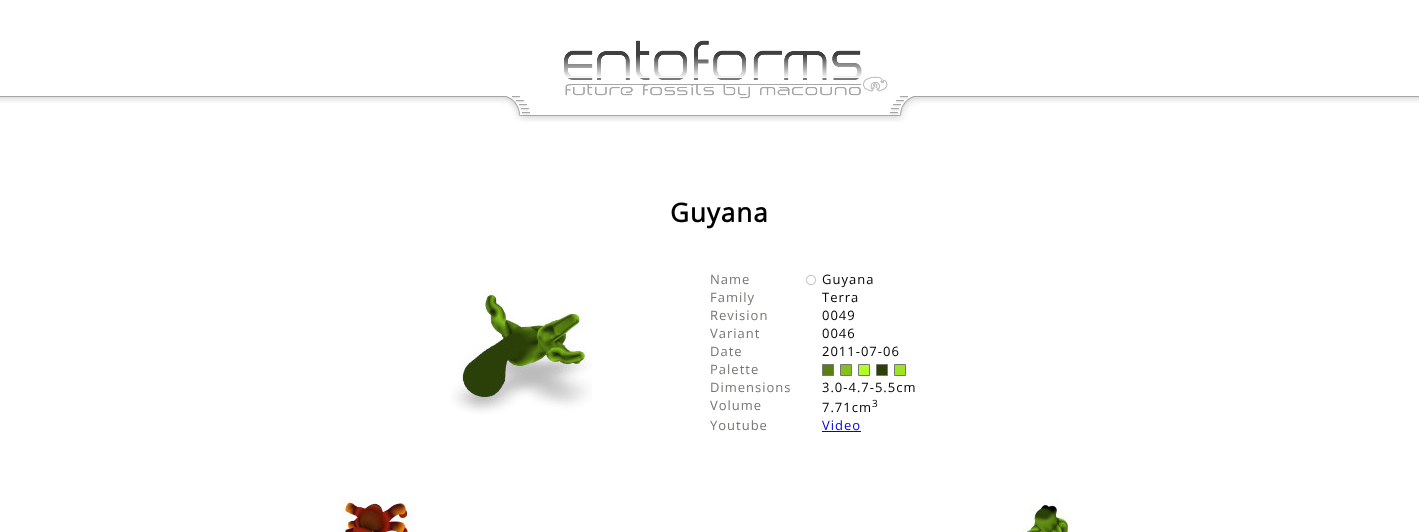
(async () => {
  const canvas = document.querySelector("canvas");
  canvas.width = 1419;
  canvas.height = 532;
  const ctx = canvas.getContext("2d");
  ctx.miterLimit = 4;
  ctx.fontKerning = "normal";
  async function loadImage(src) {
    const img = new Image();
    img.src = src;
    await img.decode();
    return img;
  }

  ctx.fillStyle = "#ffffff";
  ctx.fillRect(0, 0, 1419, 532);
  ctx.drawImage(await loadImage("img/1.png"), 0, 96, 1419, 7);
  ctx.drawImage(await loadImage("img/2.png"), 501, 40, 419, 82);
  ctx.drawImage(await loadImage("img/3.png"), 451, 290, 141, 124);
  ctx.drawImage(await loadImage("img/4.png"), 806, 275, 10, 10);
  ctx.fillStyle = "#577f13";
  ctx.beginPath();
  ctx.rect(822.5, 364.5, 11, 11);
  ctx.fill();
  ctx.strokeStyle = "#787672";
  ctx.stroke();
  ctx.fillStyle = "#83bf1d";
  ctx.beginPath();
  ctx.rect(840.5, 364.5, 11, 11);
  ctx.fill();
  ctx.stroke();
  ctx.fillStyle = "#afff27";
  ctx.beginPath();
  ctx.rect(858.5, 364.5, 11, 11);
  ctx.fill();
  ctx.stroke();
  ctx.fillStyle = "#2c400a";
  ctx.beginPath();
  ctx.rect(876.5, 364.5, 11, 11);
  ctx.fill();
  ctx.stroke();
  ctx.fillStyle = "#9de523";
  ctx.beginPath();
  ctx.rect(894.5, 364.5, 11, 11);
  ctx.fill();
  ctx.stroke();
  ctx.fillStyle = "#0000ee";
  ctx.fillRect(822, 431, 39, 1);
  ctx.drawImage(await loadImage("img/5.png"), 342, 500, 72, 32);
  ctx.drawImage(await loadImage("img/6.png"), 1022, 500, 48, 32);
  ctx.letterSpacing = "1px";
  ctx.font = "bold 26px Open Sans";
  ctx.fillStyle = "#000000";
  ctx.fillText("Guyana", 670, 222);
  ctx.font = "13px Open Sans";
  ctx.fillStyle = "#787672";
  ctx.fillText("Name", 710, 284);
  ctx.fillStyle = "#000000";
  ctx.fillText("Guyana", 822, 284);
  ctx.fillStyle = "#787672";
  ctx.fillText("Family", 710, 302);
  ctx.fillStyle = "#000000";
  ctx.fillText("Terra", 822, 302);
  ctx.fillStyle = "#787672";
  ctx.fillText("Revision", 710, 320);
  ctx.fillStyle = "#000000";
  ctx.fillText("0049", 822, 320);
  ctx.fillStyle = "#787672";
  ctx.fillText("Variant", 710, 338);
  ctx.fillStyle = "#000000";
  ctx.fillText("0046", 822, 338);
  ctx.fillStyle = "#787672";
  ctx.fillText("Date", 710, 356);
  ctx.fillStyle = "#000000";
  ctx.fillText("2011-07-06", 822, 356);
  ctx.fillStyle = "#787672";
  ctx.fillText("Palette", 710, 374);
  ctx.fillText("Dimensions", 710, 392);
  ctx.fillStyle = "#000000";
  ctx.fillText("3.0-4.7-5.5cm", 822, 392);
  ctx.fillStyle = "#787672";
  ctx.fillText("Volume", 710, 410);
  ctx.fillStyle = "#000000";
  ctx.fillText("7.71cm", 822, 412);
  ctx.font = "10px Open Sans";
  ctx.fillText("3", 872, 407);
  ctx.font = "13px Open Sans";
  ctx.fillStyle = "#787672";
  ctx.fillText("Youtube", 710, 430);
  ctx.fillStyle = "#0000ee";
  ctx.fillText("Video", 822, 430);
})();
